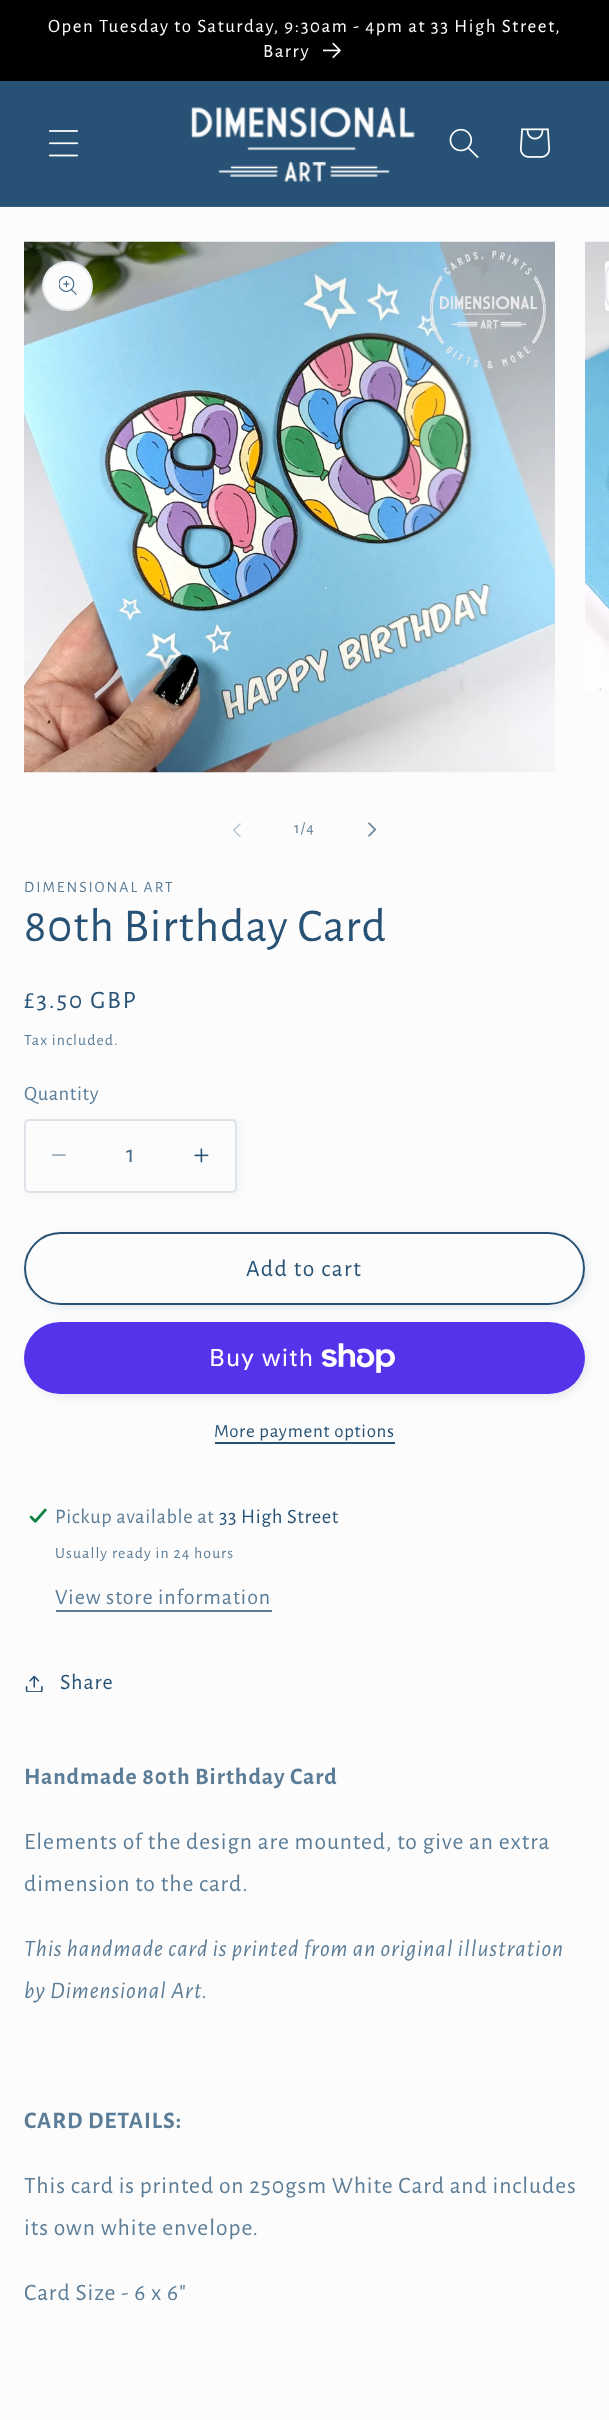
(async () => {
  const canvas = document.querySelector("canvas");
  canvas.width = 609;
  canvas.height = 2420;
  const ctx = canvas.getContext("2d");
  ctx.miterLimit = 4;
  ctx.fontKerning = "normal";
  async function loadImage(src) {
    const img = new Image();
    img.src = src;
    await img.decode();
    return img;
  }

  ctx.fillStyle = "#fcfcfc";
  ctx.fillRect(0, 0, 609, 2420);
  ctx.fillStyle = "#000000";
  ctx.fillRect(0, 0, 609, 81);
  ctx.drawImage(await loadImage("img/1.png"), 323, 42, 18, 16);
  ctx.fillStyle = "#275275";
  ctx.fillRect(0, 81, 609, 125);
  ctx.fillStyle = "#386080";
  ctx.fillRect(0, 206, 609, 1);
  ctx.drawImage(await loadImage("img/2.png"), 48, 130, 31, 27);
  ctx.drawImage(await loadImage("img/3.png"), 190, 107, 225, 75);
  ctx.drawImage(await loadImage("img/4.png"), 449, 128, 30, 30);
  ctx.drawImage(await loadImage("img/5.png"), 520, 128, 31, 30);
  ctx.drawImage(await loadImage("img/6.png"), 24, 241, 531, 532);
  ctx.fillStyle = "#fcfcfc";
  ctx.beginPath();
  ctx.roundRect(42, 261, 51, 50, 25);
  ctx.fill();
  ctx.beginPath();
  ctx.roundRect(43, 262, 49, 48, 24);
  ctx.strokeStyle = "rgba(39, 82, 117, 0.1)";
  ctx.lineWidth = 2;
  ctx.stroke();
  ctx.drawImage(await loadImage("img/7.png"), 59, 276, 18, 19);
  ctx.drawImage(await loadImage("img/8.png"), 585, 241, 24, 450);
  ctx.beginPath();
  ctx.roundRect(605, 261, 4, 50, [24.5, 0, 0, 24.5]);
  ctx.fill();
  ctx.beginPath();
  ctx.roundRect(606, 262, 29, 48, 23.5);
  ctx.stroke();
  ctx.drawImage(await loadImage("img/9.png"), 233, 823, 8, 15);
  ctx.drawImage(await loadImage("img/10.png"), 368, 822, 8, 15);
  ctx.fillStyle = "rgba(39, 82, 117, 0.05)";
  ctx.filter = "blur(4px)";
  ctx.beginPath();
  ctx.roundRect(27, 1122, 213, 74, 5);
  ctx.fill();
  ctx.filter = "none";
  ctx.fillStyle = "#fcfcfc";
  ctx.beginPath();
  ctx.roundRect(24, 1119, 213, 74, 5);
  ctx.fill();
  ctx.drawImage(await loadImage("img/11.png"), 51, 1154, 15, 2);
  ctx.drawImage(await loadImage("img/12.png"), 194, 1148, 15, 15);
  ctx.beginPath();
  ctx.roundRect(25, 1120, 211, 72, 4);
  ctx.strokeStyle = "rgba(39, 82, 117, 0.15)";
  ctx.stroke();
  ctx.fillStyle = "rgba(39, 82, 117, 0.1)";
  ctx.filter = "blur(4px)";
  ctx.beginPath();
  ctx.roundRect(27, 1235, 561, 73, 36.5);
  ctx.fill();
  ctx.filter = "none";
  ctx.fillStyle = "#fcfcfc";
  ctx.beginPath();
  ctx.roundRect(24, 1232, 561, 73, 36.5);
  ctx.fill();
  ctx.beginPath();
  ctx.roundRect(25, 1233, 559, 71, 35.5);
  ctx.strokeStyle = "#fcfcfc";
  ctx.stroke();
  ctx.beginPath();
  ctx.roundRect(25, 1233, 559, 71, 35.5);
  ctx.strokeStyle = "#275275";
  ctx.stroke();
  ctx.fillStyle = "rgba(39, 82, 117, 0.1)";
  ctx.filter = "blur(4px)";
  ctx.beginPath();
  ctx.roundRect(27, 1325, 561, 72, 36);
  ctx.fill();
  ctx.filter = "none";
  ctx.fillStyle = "#5433eb";
  ctx.beginPath();
  ctx.roundRect(24, 1322, 561, 72, 36);
  ctx.fill();
  ctx.drawImage(await loadImage("img/13.png"), 321, 1343, 74, 30);
  ctx.fillStyle = "#275275";
  ctx.fillRect(215, 1442, 180, 2);
  ctx.drawImage(await loadImage("img/14.png"), 29, 1508, 18, 15);
  ctx.fillStyle = "#5c7d97";
  ctx.fillRect(56, 1610, 216, 2);
  ctx.drawImage(await loadImage("img/15.png"), 25, 1675, 18, 17);
  ctx.letterSpacing = "1.58px";
  ctx.font = "18.9px Alegreya Sans";
  ctx.fillStyle = "#ffffff";
  ctx.fillText("Open Tuesday to Saturday, 9:30am - 4pm at 33 High Street,", 48, 32);
  ctx.fillText("Barry", 263, 57);
  ctx.letterSpacing = "1.1px";
  ctx.font = "15.75px Alegreya Sans";
  ctx.fillStyle = "#5c7d97";
  ctx.fillText("1/4", 294, 833);
  ctx.letterSpacing = "2px";
  ctx.fillText("DIMENSIONAL ART", 24, 892);
  ctx.letterSpacing = "0.95px";
  ctx.font = "47.25px Alegreya Sans";
  ctx.fillStyle = "#275275";
  ctx.fillText("80th Birthday Card", 24, 941);
  ctx.letterSpacing = "2px";
  ctx.font = "25px Alegreya Sans";
  ctx.fillText("£3.50 GBP", 24, 1008);
  ctx.letterSpacing = "1.1px";
  ctx.font = "15.75px Alegreya Sans";
  ctx.fillStyle = "#5c7d97";
  ctx.fillText("Tax included.", 24, 1045);
  ctx.letterSpacing = "0.6px";
  ctx.font = "20.5px Alegreya Sans";
  ctx.fillText("Quantity", 24, 1100);
  ctx.letterSpacing = "0px";
  ctx.font = "25px Alegreya Sans";
  ctx.fillStyle = "#476c89";
  ctx.fillText("1", 126, 1162);
  ctx.letterSpacing = "1.58px";
  ctx.font = "23.6px Alegreya Sans";
  ctx.fillStyle = "#275275";
  ctx.fillText("Add to cart", 246, 1276);
  ctx.letterSpacing = "0.95px";
  ctx.font = "24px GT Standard";
  ctx.fillStyle = "#ffffff";
  ctx.fillText("Buy with", 209, 1366);
  ctx.letterSpacing = "0.75px";
  ctx.font = "18.9px Alegreya Sans";
  ctx.fillStyle = "#275275";
  ctx.fillText("More payment options", 214, 1437);
  ctx.letterSpacing = "0.6px";
  ctx.font = "20.5px Alegreya Sans";
  ctx.fillStyle = "#5c7d97";
  ctx.fillText("Pickup available at", 55, 1523);
  ctx.fillStyle = "#275275";
  ctx.fillText("33 High Street", 219, 1523);
  ctx.letterSpacing = "1.1px";
  ctx.font = "15.75px Alegreya Sans";
  ctx.fillStyle = "#5c7d97";
  ctx.fillText("Usually ready in 24 hours", 55, 1558);
  ctx.letterSpacing = "0.95px";
  ctx.font = "22px Alegreya Sans";
  ctx.fillText("View store information", 55, 1604);
  ctx.fillStyle = "#275275";
  ctx.fillText("Share", 60, 1689);
  ctx.font = "bold 23.6px Alegreya Sans";
  ctx.fillStyle = "#5c7d97";
  ctx.fillText("Handmade 80th Birthday Card", 24, 1784);
  ctx.font = "23.6px Alegreya Sans";
  ctx.fillText("Elements of the design are mounted, to give an extra", 24, 1849);
  ctx.fillText("dimension to the card.", 24, 1891);
  ctx.font = "italic 23.6px Alegreya Sans";
  ctx.fillText("This handmade card is printed from an original illustration", 24, 1956);
  ctx.fillText("by Dimensional Art.", 24, 1998);
  ctx.font = "bold 23.6px Alegreya Sans";
  ctx.fillText("CARD DETAILS:", 24, 2128);
  ctx.font = "23.6px Alegreya Sans";
  for (const [text, x, y] of [
    ["This card is printed on 250gsm White Card and includes", 24, 2193],
    ["its own white envelope.", 24, 2235],
    ["Card Size - 6 x 6\"", 24, 2300],
  ]) {
    ctx.fillText(text, x, y);
  }
})();
